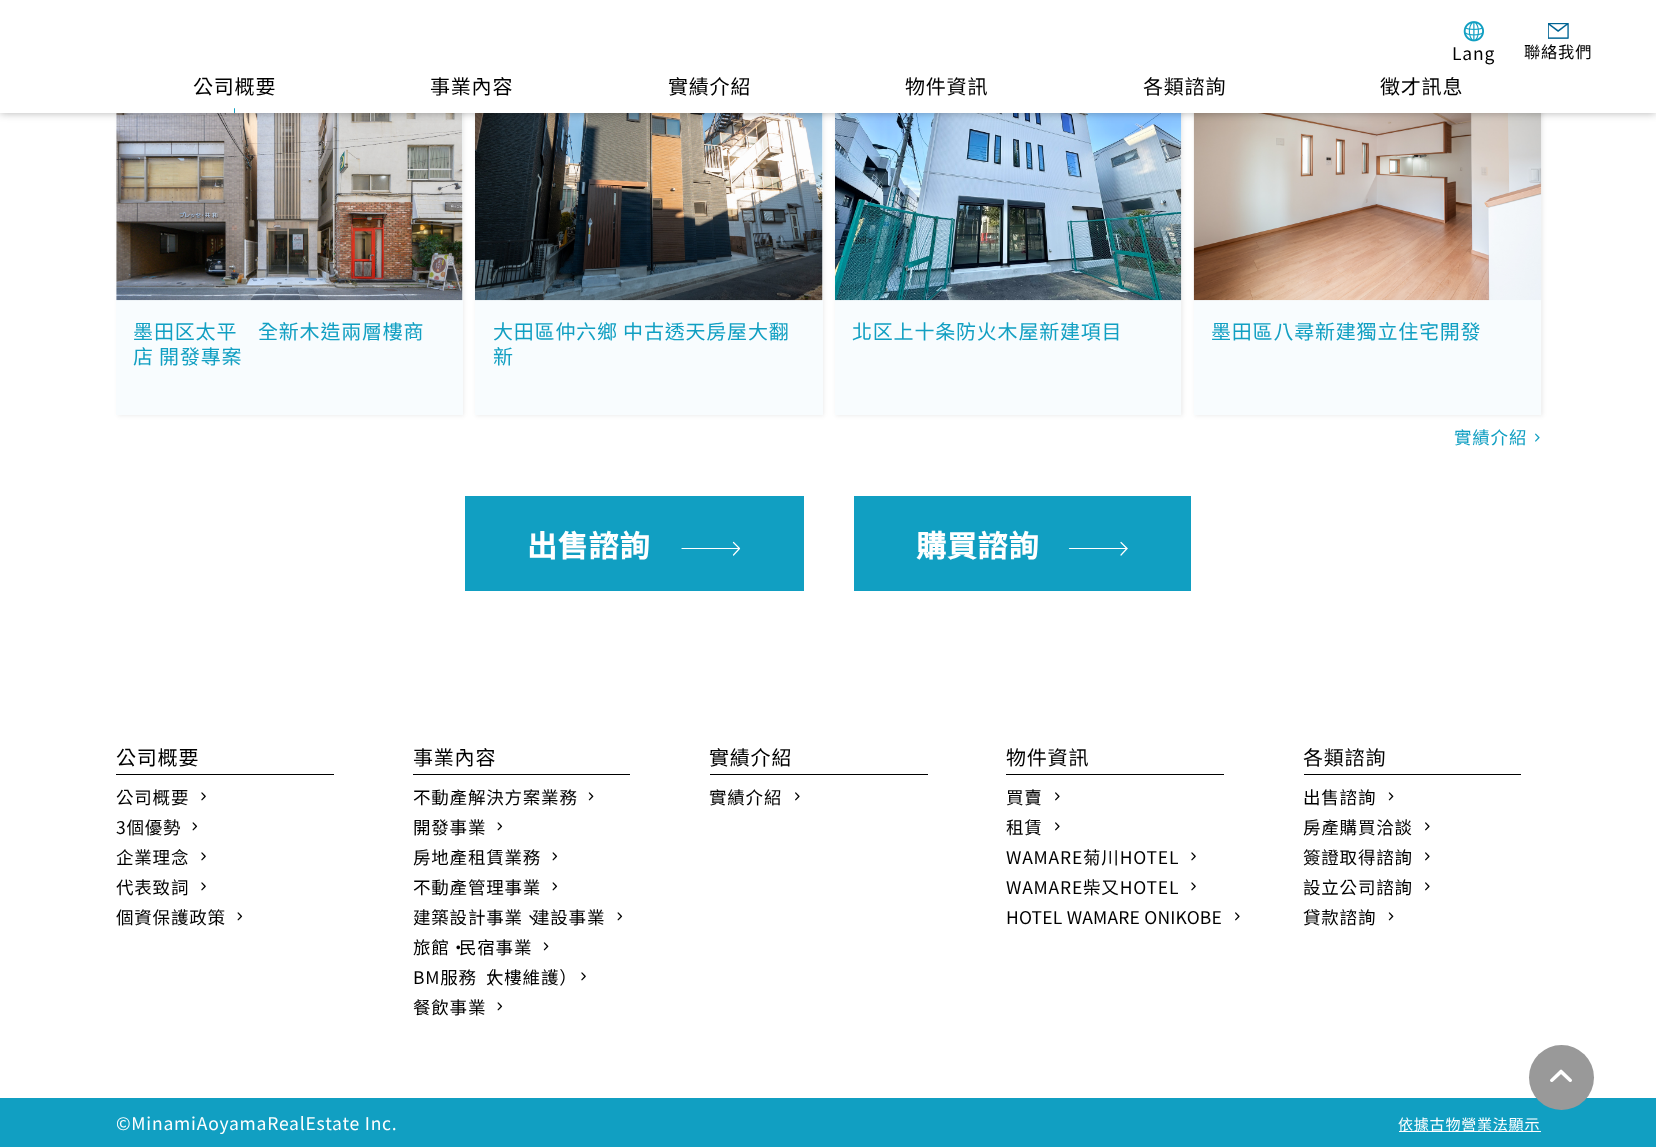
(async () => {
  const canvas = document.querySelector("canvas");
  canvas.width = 1656;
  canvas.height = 1147;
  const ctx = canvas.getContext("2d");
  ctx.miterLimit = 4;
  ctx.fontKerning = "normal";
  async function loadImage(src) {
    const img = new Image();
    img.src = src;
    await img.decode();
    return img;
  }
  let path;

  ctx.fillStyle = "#ffffff";
  ctx.fillRect(0, 0, 1656, 1147);
  ctx.fillStyle = "rgba(0, 0, 0, 0.07)";
  ctx.filter = "blur(2px)";
  ctx.beginPath();
  ctx.rect(118, 41, 346, 375);
  ctx.fill();
  ctx.filter = "none";
  ctx.fillStyle = "#f8fcfe";
  ctx.fillRect(116, 113, 347, 302);
  ctx.drawImage(await loadImage("img/3.png"), 116, 113, 347, 188);
  ctx.fillStyle = "rgba(0, 0, 0, 0.07)";
  ctx.filter = "blur(2px)";
  ctx.beginPath();
  ctx.rect(476, 41, 348, 375);
  ctx.fill();
  ctx.filter = "none";
  ctx.fillStyle = "#f8fcfe";
  ctx.fillRect(475, 113, 348, 302);
  ctx.drawImage(await loadImage("img/4.png"), 475, 113, 348, 188);
  ctx.fillStyle = "rgba(0, 0, 0, 0.07)";
  ctx.filter = "blur(2px)";
  ctx.beginPath();
  ctx.rect(836, 41, 347, 375);
  ctx.fill();
  ctx.filter = "none";
  ctx.fillStyle = "#f8fcfe";
  ctx.fillRect(835, 300, 346, 115);
  ctx.drawImage(await loadImage("img/5.png"), 835, 113, 347, 188);
  ctx.fillStyle = "rgba(0, 0, 0, 0.07)";
  ctx.filter = "blur(2px)";
  ctx.beginPath();
  ctx.rect(1195, 41, 348, 375);
  ctx.fill();
  ctx.filter = "none";
  ctx.fillStyle = "#f8fcfe";
  ctx.fillRect(1194, 300, 347, 115);
  ctx.drawImage(await loadImage("img/6.png"), 1193, 113, 349, 188);
  ctx.fillStyle = "rgba(0, 0, 0, 0.3)";
  ctx.filter = "blur(4px)";
  ctx.beginPath();
  ctx.rect(0, 0, 1656, 113);
  ctx.fill();
  ctx.filter = "none";
  ctx.fillStyle = "#ffffff";
  ctx.fillRect(0, 0, 1656, 113);
  ctx.drawImage(await loadImage("img/1.png"), 1463, 21, 21, 21);
  ctx.drawImage(await loadImage("img/2.png"), 1548, 23, 21, 16);
  ctx.fillStyle = "#119fc2";
  ctx.beginPath();
  ctx.roundRect(234, 108, 1, 5, 0.5);
  ctx.fill();
  ctx.drawImage(await loadImage("img/7.png"), 1535, 433, 5, 9);
  ctx.beginPath();
  ctx.rect(466.5, 497.5, 336, 92);
  ctx.fill();
  ctx.strokeStyle = "#119fc2";
  ctx.lineWidth = 3;
  ctx.stroke();
  path = new Path2D("M682 548.5H739.5");
  ctx.strokeStyle = "#ffffff";
  ctx.lineWidth = 1.2;
  ctx.lineCap = "round";
  ctx.stroke(path);
  path = new Path2D("M733.5 542.5L739.5 548.5L733.5 555");
  ctx.lineJoin = "round";
  ctx.stroke(path);
  ctx.beginPath();
  ctx.rect(855.5, 497.5, 334, 92);
  ctx.fill();
  ctx.strokeStyle = "#119fc2";
  ctx.lineWidth = 3;
  ctx.lineJoin = "miter";
  ctx.stroke();
  path = new Path2D("M1069.5 548.5H1127");
  ctx.strokeStyle = "#ffffff";
  ctx.lineWidth = 1.2;
  ctx.stroke(path);
  path = new Path2D("M1121 542.5L1127 548.5L1121 555");
  ctx.lineJoin = "round";
  ctx.stroke(path);
  for (const [x, y, w, h, color] of [
    [0, 1098, 1656, 49, "#119fc2"],
    [1399, 1131, 142, 1, "#ffffff"],
    [116, 774, 218, 1, "#000000"],
  ]) {
    ctx.fillStyle = color;
    ctx.fillRect(x, y, w, h);
  }
  ctx.drawImage(await loadImage("img/8.png"), 201, 792, 5, 9);
  ctx.drawImage(await loadImage("img/9.png"), 192, 822, 6, 9);
  ctx.drawImage(await loadImage("img/8.png"), 201, 852, 5, 9);
  ctx.drawImage(await loadImage("img/8.png"), 201, 882, 5, 9);
  ctx.drawImage(await loadImage("img/9.png"), 237, 912, 6, 9);
  ctx.fillRect(413, 774, 217, 1);
  ctx.drawImage(await loadImage("img/10.png"), 588, 792, 6, 9);
  ctx.drawImage(await loadImage("img/9.png"), 497, 822, 6, 9);
  ctx.drawImage(await loadImage("img/9.png"), 552, 852, 6, 9);
  ctx.drawImage(await loadImage("img/9.png"), 552, 882, 6, 9);
  ctx.drawImage(await loadImage("img/9.png"), 617, 912, 6, 9);
  ctx.drawImage(await loadImage("img/10.png"), 543, 942, 6, 9);
  ctx.drawImage(await loadImage("img/8.png"), 581, 972, 5, 9);
  ctx.drawImage(await loadImage("img/9.png"), 497, 1002, 6, 9);
  ctx.fillRect(710, 774, 218, 1);
  ctx.drawImage(await loadImage("img/11.png"), 795, 792, 5, 9);
  ctx.fillRect(1006, 774, 218, 1);
  ctx.drawImage(await loadImage("img/11.png"), 1055, 792, 5, 9);
  ctx.drawImage(await loadImage("img/11.png"), 1055, 822, 5, 9);
  ctx.drawImage(await loadImage("img/8.png"), 1191, 852, 5, 9);
  ctx.drawImage(await loadImage("img/8.png"), 1191, 882, 5, 9);
  ctx.drawImage(await loadImage("img/11.png"), 1235, 912, 5, 9);
  ctx.fillRect(1304, 774, 217, 1);
  ctx.drawImage(await loadImage("img/10.png"), 1388, 792, 6, 9);
  ctx.drawImage(await loadImage("img/11.png"), 1425, 822, 5, 9);
  ctx.drawImage(await loadImage("img/11.png"), 1425, 852, 5, 9);
  ctx.drawImage(await loadImage("img/11.png"), 1425, 882, 5, 9);
  ctx.drawImage(await loadImage("img/10.png"), 1388, 912, 6, 9);
  ctx.fillStyle = "#999999";
  ctx.beginPath();
  ctx.arc(1561.5, 1077.5, 32.5, 0, Math.PI * 2);
  ctx.fill();
  ctx.drawImage(await loadImage("img/12.png"), 1550, 1069, 22, 13);
  ctx.letterSpacing = "0.8px";
  ctx.font = "17.5px Noto Sans TC";
  ctx.fillStyle = "#000000";
  ctx.fillText("Lang", 1452, 60);
  ctx.font = "16.25px Noto Sans TC";
  ctx.fillText("聯絡我們", 1524, 58);
  ctx.font = "20px Noto Sans TC";
  for (const [text, x, y] of [
    ["公司概要", 193, 94],
    ["事業內容", 430, 94],
    ["實績介紹", 668, 94],
    ["物件資訊", 905, 94],
    ["各類諮詢", 1143, 94],
    ["徵才訊息", 1380, 94],
  ]) {
    ctx.fillText(text, x, y);
  }
  ctx.fillStyle = "#119fc2";
  ctx.fillText("墨", 133, 339);
  ctx.font = "20px Noto Sans CJK TC";
  ctx.fillText("田区太平　全新木造兩層樓商", 154, 339);
  ctx.fillText("店 開發專案", 133, 364);
  ctx.font = "20px Noto Sans TC";
  ctx.fillText("大田區仲六鄉 中古透天房屋大翻", 493, 339);
  ctx.fillText("新", 493, 364);
  ctx.font = "20px Noto Sans CJK TC";
  ctx.fillText("北区上十条防火木屋新建項目", 852, 339);
  ctx.font = "20px Noto Sans TC";
  ctx.fillText("墨田區八尋新建獨立住宅開發", 1211, 339);
  ctx.font = "17.5px Noto Sans TC";
  ctx.fillText("實績介紹", 1454, 444);
  ctx.font = "bold 30px Noto Sans TC";
  ctx.fillStyle = "#ffffff";
  ctx.fillText("出售諮詢", 527, 557);
  ctx.fillText("購買諮詢", 916, 557);
  ctx.font = "17.5px Noto Sans TC";
  ctx.fillText("©MinamiAoyamaRealEstate Inc.", 116, 1130);
  ctx.font = "15px Noto Sans TC";
  ctx.fillText("依據古物營業法顯示", 1398, 1130);
  ctx.font = "20px Noto Sans TC";
  ctx.fillStyle = "#000000";
  ctx.fillText("公司概要", 116, 765);
  ctx.font = "17.5px Noto Sans TC";
  for (const [text, x, y] of [
    ["公司概要", 116, 804],
    ["3個優勢", 116, 834],
    ["企業理念", 116, 864],
    ["代表致詞", 116, 894],
    ["個資保護政策", 116, 924],
  ]) {
    ctx.fillText(text, x, y);
  }
  ctx.font = "20px Noto Sans TC";
  ctx.fillText("事業內容", 413, 765);
  ctx.font = "17.5px Noto Sans TC";
  for (const [text, x, y] of [
    ["不動產解決方案業務", 413, 804],
    ["開發事業", 413, 834],
    ["房地產租賃業務", 413, 864],
    ["不動產管理事業", 413, 894],
    ["建築設計事業、", 413, 924],
    ["建設事業", 532, 924],
    ["旅館・", 413, 954],
    ["民宿事業", 459, 954],
    ["BM服務（", 413, 984],
    ["大樓維護）", 486, 984],
    ["餐飲事業", 413, 1014],
  ]) {
    ctx.fillText(text, x, y);
  }
  ctx.font = "20px Noto Sans TC";
  ctx.fillText("實績介紹", 709, 765);
  ctx.font = "17.5px Noto Sans TC";
  ctx.fillText("實績介紹", 709, 804);
  ctx.font = "20px Noto Sans TC";
  ctx.fillText("物件資訊", 1006, 765);
  ctx.font = "17.5px Noto Sans TC";
  for (const [text, x, y] of [
    ["買賣", 1006, 804],
    ["租賃", 1006, 834],
    ["WAMARE菊川HOTEL", 1006, 864],
    ["WAMARE柴又HOTEL", 1006, 894],
  ]) {
    ctx.fillText(text, x, y);
  }
  ctx.letterSpacing = "0.2px";
  ctx.fillText("HOTEL WAMARE ONIKOBE", 1006, 924);
  ctx.letterSpacing = "0.8px";
  ctx.font = "20px Noto Sans TC";
  ctx.fillText("各類諮詢", 1303, 765);
  ctx.font = "17.5px Noto Sans TC";
  for (const [text, x, y] of [
    ["出售諮詢", 1303, 804],
    ["房產購買洽談", 1303, 834],
    ["簽證取得諮詢", 1303, 864],
    ["設立公司諮詢", 1303, 894],
    ["貸款諮詢", 1303, 924],
  ]) {
    ctx.fillText(text, x, y);
  }
})();
